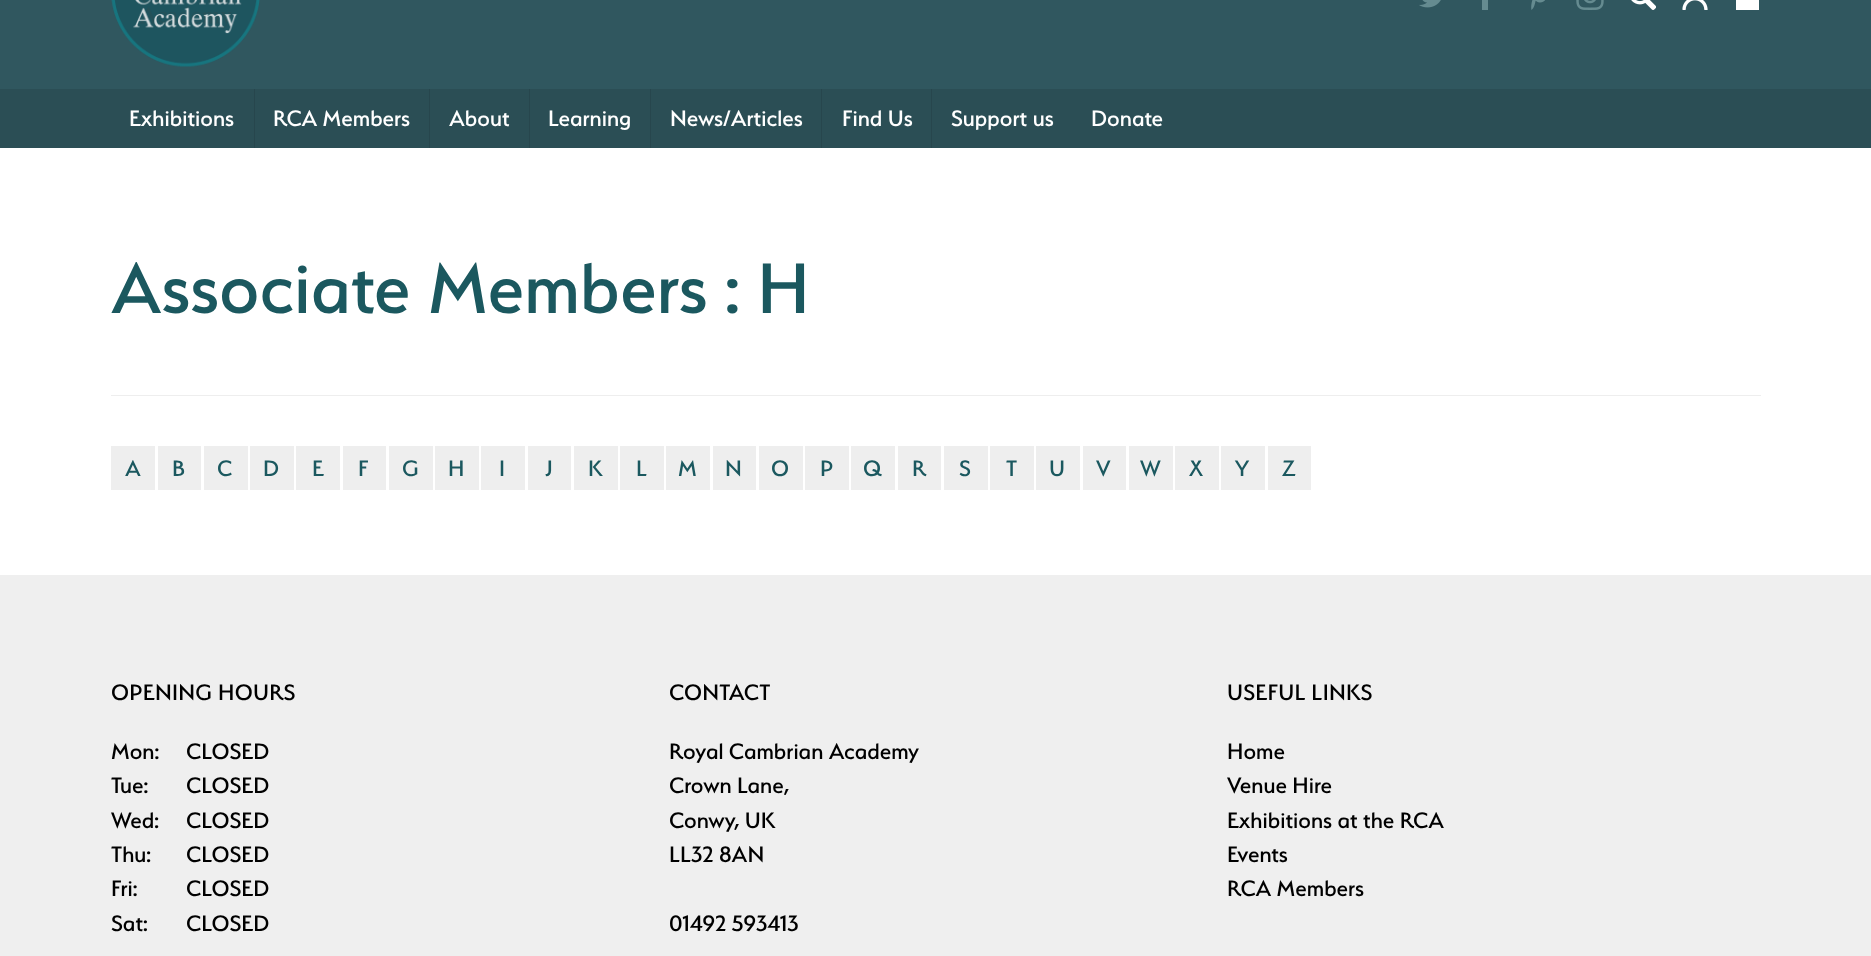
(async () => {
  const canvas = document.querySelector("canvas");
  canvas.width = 1871;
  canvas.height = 956;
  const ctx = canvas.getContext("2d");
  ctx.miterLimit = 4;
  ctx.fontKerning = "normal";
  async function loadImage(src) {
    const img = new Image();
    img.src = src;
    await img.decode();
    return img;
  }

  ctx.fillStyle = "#ffffff";
  ctx.fillRect(0, 0, 1871, 956);
  ctx.fillStyle = "#30575f";
  ctx.fillRect(0, 0, 1871, 89);
  ctx.drawImage(await loadImage("img/1.png"), 111, 0, 149, 67);
  ctx.drawImage(await loadImage("img/2.png"), 1419, 0, 22, 8);
  ctx.fillStyle = "#658b90";
  ctx.fillRect(1482, 0, 6, 10);
  ctx.drawImage(await loadImage("img/3.png"), 1531, 0, 14, 10);
  ctx.drawImage(await loadImage("img/4.png"), 1576, 0, 28, 10);
  ctx.drawImage(await loadImage("img/5.png"), 1631, 0, 25, 10);
  ctx.drawImage(await loadImage("img/6.png"), 1682, 0, 26, 10);
  for (const [x, y, w, h, color] of [
    [1736, 0, 23, 10, "#ffffff"],
    [0, 89, 1871, 59, "#2b4e55"],
    [254, 89, 1, 59, "#27464d"],
    [429, 89, 1, 59, "#27464d"],
    [529, 89, 1, 59, "#27464d"],
    [650, 89, 1, 59, "#27464d"],
    [821, 89, 1, 59, "#27464d"],
    [931, 89, 1, 59, "#27464d"],
    [111, 395, 1650, 1, "#eeeeee"],
    [111, 446, 44, 44, "#eeeeee"],
    [158, 446, 43, 44, "#eeeeee"],
    [204, 446, 44, 44, "#eeeeee"],
    [250, 446, 44, 44, "#eeeeee"],
    [296, 446, 44, 44, "#eeeeee"],
    [343, 446, 43, 44, "#eeeeee"],
    [389, 446, 44, 44, "#eeeeee"],
    [435, 446, 44, 44, "#eeeeee"],
    [481, 446, 44, 44, "#eeeeee"],
    [528, 446, 43, 44, "#eeeeee"],
    [574, 446, 44, 44, "#eeeeee"],
    [620, 446, 44, 44, "#eeeeee"],
    [666, 446, 44, 44, "#eeeeee"],
    [713, 446, 43, 44, "#eeeeee"],
    [759, 446, 44, 44, "#eeeeee"],
    [805, 446, 44, 44, "#eeeeee"],
    [851, 446, 44, 44, "#eeeeee"],
    [898, 446, 43, 44, "#eeeeee"],
    [944, 446, 44, 44, "#eeeeee"],
    [990, 446, 44, 44, "#eeeeee"],
    [1036, 446, 44, 44, "#eeeeee"],
    [1083, 446, 43, 44, "#eeeeee"],
    [1129, 446, 44, 44, "#eeeeee"],
    [1175, 446, 44, 44, "#eeeeee"],
    [1221, 446, 44, 44, "#eeeeee"],
    [1268, 446, 43, 44, "#eeeeee"],
    [0, 575, 1871, 381, "#efefef"],
  ]) {
    ctx.fillStyle = color;
    ctx.fillRect(x, y, w, h);
  }
  ctx.font = "500 25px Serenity";
  ctx.fillStyle = "#ffffff";
  for (const [text, x, y] of [
    ["Exhibitions", 129, 126],
    ["RCA Members", 273, 126],
    ["About", 449, 126],
    ["Learning", 548, 126],
    ["News/Articles", 670, 126],
    ["Find Us", 842, 126],
    ["Support us", 951, 126],
    ["Donate", 1091, 126],
  ]) {
    ctx.fillText(text, x, y);
  }
  ctx.font = "500 80px Serenity";
  ctx.fillStyle = "#1b585f";
  ctx.fillText("Associate Members : H", 111, 313);
  ctx.font = "500 25px Serenity";
  for (const [text, x, y] of [
    ["A", 125, 476],
    ["B", 172, 476],
    ["C", 217, 476],
    ["D", 263, 476],
    ["E", 312, 476],
    ["F", 358, 476],
    ["G", 402, 476],
    ["H", 448, 476],
    ["I", 499, 476],
    ["J", 545, 476],
    ["K", 588, 476],
    ["L", 636, 476],
    ["M", 678, 476],
    ["N", 725, 476],
    ["O", 771, 476],
    ["P", 820, 476],
    ["Q", 863, 476],
    ["R", 912, 476],
    ["S", 959, 476],
    ["T", 1006, 476],
    ["U", 1049, 476],
    ["V", 1096, 476],
    ["W", 1140, 476],
    ["X", 1189, 476],
    ["Y", 1235, 476],
    ["Z", 1282, 476],
  ]) {
    ctx.fillText(text, x, y);
  }
  ctx.letterSpacing = "0.25px";
  ctx.fillStyle = "#000000";
  ctx.fillText("OPENING HOURS", 111, 700);
  ctx.letterSpacing = "0px";
  for (const [text, x, y] of [
    ["Mon:", 111, 759],
    ["CLOSED", 186, 759],
    ["Tue:", 111, 793],
    ["CLOSED", 186, 793],
    ["Wed:", 111, 828],
    ["CLOSED", 186, 828],
    ["Thu:", 111, 862],
    ["CLOSED", 186, 862],
    ["Fri:", 111, 896],
    ["CLOSED", 186, 896],
    ["Sat:", 111, 931],
    ["CLOSED", 186, 931],
  ]) {
    ctx.fillText(text, x, y);
  }
  ctx.letterSpacing = "0.25px";
  ctx.fillText("CONTACT", 669, 700);
  ctx.letterSpacing = "0px";
  for (const [text, x, y] of [
    ["Royal Cambrian Academy", 669, 759],
    ["Crown Lane,", 669, 793],
    ["Conwy, UK", 669, 828],
    ["LL32 8AN", 669, 862],
    ["01492 593413", 669, 931],
  ]) {
    ctx.fillText(text, x, y);
  }
  ctx.letterSpacing = "0.25px";
  ctx.fillText("USEFUL LINKS", 1227, 700);
  ctx.letterSpacing = "0px";
  for (const [text, x, y] of [
    ["Home", 1227, 759],
    ["Venue Hire", 1227, 793],
    ["Exhibitions at the RCA", 1227, 828],
    ["Events", 1227, 862],
    ["RCA Members", 1227, 896],
  ]) {
    ctx.fillText(text, x, y);
  }
})();
